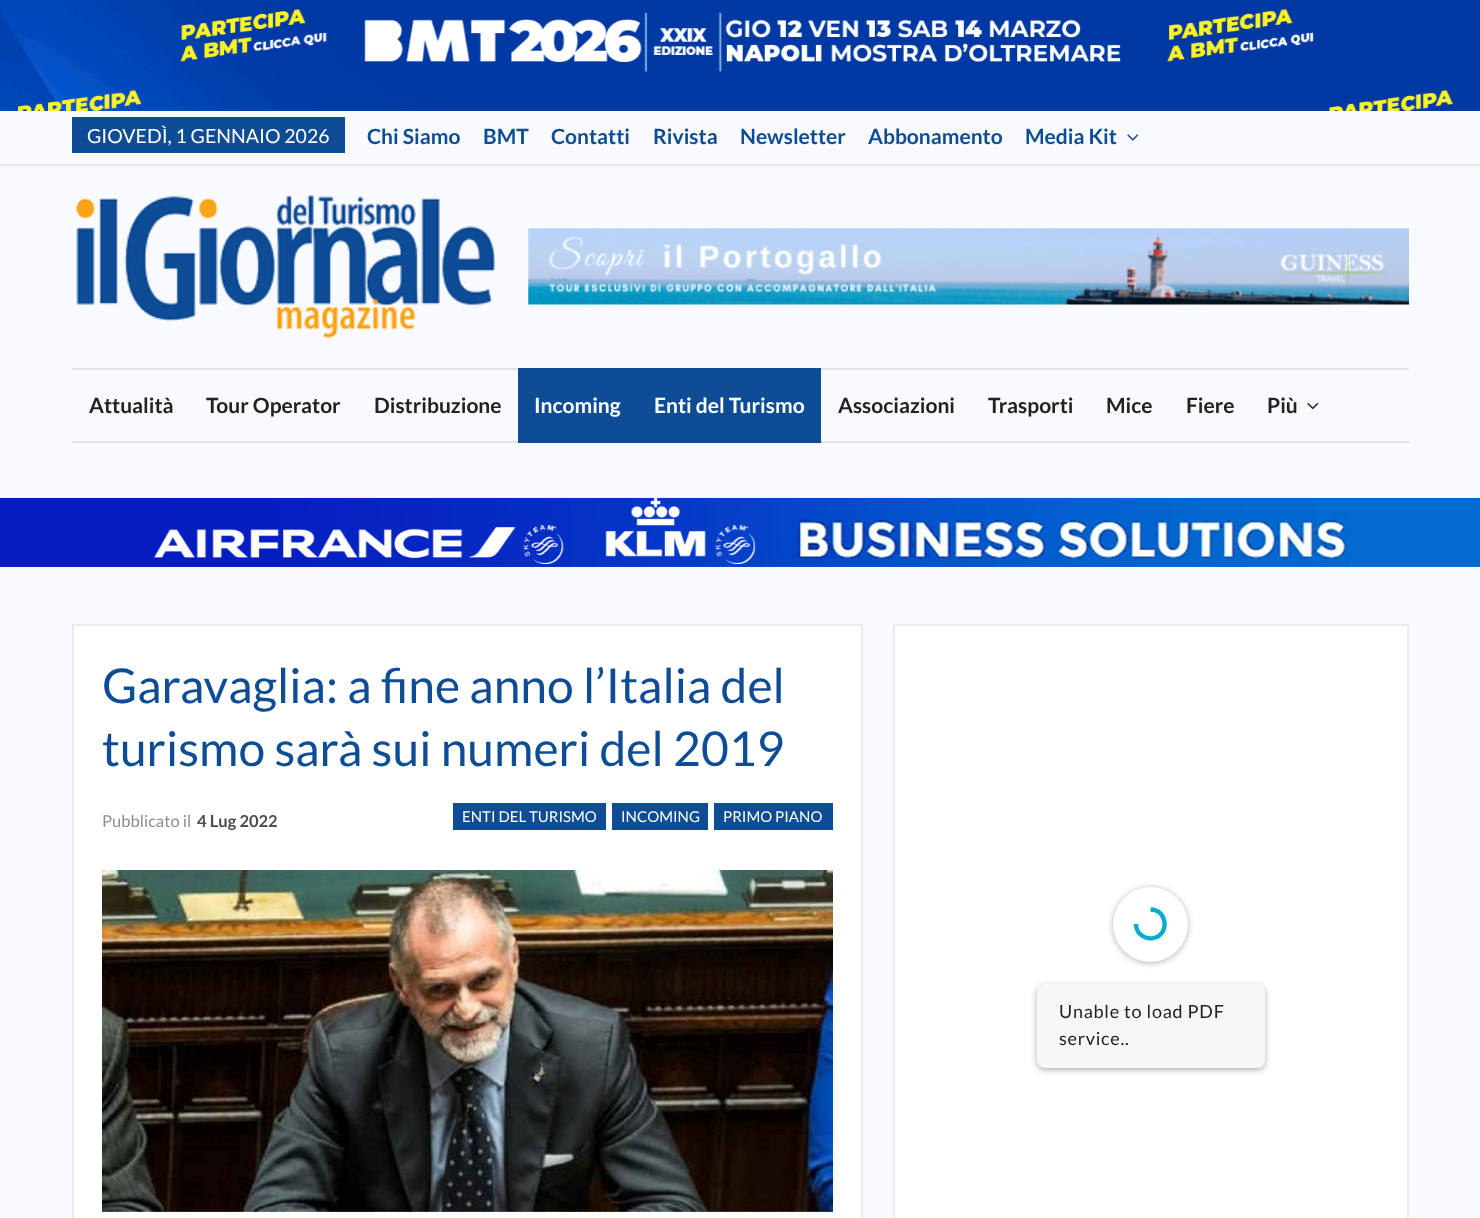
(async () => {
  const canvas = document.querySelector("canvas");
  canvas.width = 1480;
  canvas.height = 1218;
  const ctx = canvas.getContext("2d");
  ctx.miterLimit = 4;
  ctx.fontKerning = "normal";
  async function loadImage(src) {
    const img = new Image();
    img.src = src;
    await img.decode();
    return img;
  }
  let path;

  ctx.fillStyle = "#ffffff";
  ctx.fillRect(0, 0, 1480, 1218);
  ctx.drawImage(await loadImage("img/1.png"), 0, 0, 1480, 111);
  for (const [x, y, w, h, color] of [
    [0, 111, 1480, 1107, "#f9fafd"],
    [0, 164, 1480, 2, "#e7e7e7"],
    [72, 117, 273, 36, "#0e4d96"],
  ]) {
    ctx.fillStyle = color;
    ctx.fillRect(x, y, w, h);
  }
  ctx.drawImage(await loadImage("img/2.png"), 1127, 134, 12, 7);
  ctx.drawImage(await loadImage("img/3.png"), 75, 195, 420, 143);
  ctx.drawImage(await loadImage("img/4.png"), 528, 228, 881, 77);
  for (const [x, y, w, h, color] of [
    [72, 368, 1337, 2, "#e0e1e3"],
    [72, 441, 1337, 2, "#e0e1e3"],
    [518, 368, 303, 75, "#0e4d96"],
  ]) {
    ctx.fillStyle = color;
    ctx.fillRect(x, y, w, h);
  }
  ctx.drawImage(await loadImage("img/5.png"), 1307, 402, 12, 8);
  ctx.drawImage(await loadImage("img/6.png"), 0, 497, 1480, 70);
  ctx.fillStyle = "#ffffff";
  ctx.beginPath();
  ctx.rect(73, 625, 789, 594);
  ctx.fill();
  ctx.strokeStyle = "#ebebeb";
  ctx.lineWidth = 2;
  ctx.stroke();
  for (const [x, y, w, h, color] of [
    [453, 803, 153, 27, "#0e4d96"],
    [612, 803, 96, 27, "#0e4d96"],
    [714, 803, 119, 27, "#0e4d96"],
  ]) {
    ctx.fillStyle = color;
    ctx.fillRect(x, y, w, h);
  }
  ctx.drawImage(await loadImage("img/7.png"), 102, 870, 731, 342);
  ctx.fillStyle = "#ffffff";
  ctx.beginPath();
  ctx.rect(894, 625, 514, 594);
  ctx.fill();
  ctx.stroke();
  ctx.fillStyle = "rgba(0, 0, 0, 0.3)";
  ctx.filter = "blur(3px)";
  ctx.beginPath();
  ctx.roundRect(1113, 888, 75, 75, 37.5);
  ctx.fill();
  ctx.filter = "none";
  ctx.fillStyle = "#ffffff";
  ctx.beginPath();
  ctx.arc(1150.5, 924.5, 37.5, 0, Math.PI * 2);
  ctx.fill();
  path = new Path2D("M1150.5 909.5C1167.5 909.5 1170 934.5 1153.5 938C1149.5 939 1145.5 938 1142.5 936C1138.5 933.5 1136 928.5 1136 924");
  ctx.strokeStyle = "#07abcc";
  ctx.lineWidth = 4.3;
  ctx.stroke(path);
  ctx.fillStyle = "rgba(0, 0, 0, 0.3)";
  ctx.filter = "blur(3px)";
  ctx.beginPath();
  ctx.roundRect(1037, 986, 228, 84, 8);
  ctx.fill();
  ctx.filter = "none";
  ctx.fillStyle = "#f7f7f7";
  ctx.beginPath();
  ctx.roundRect(1037, 984, 228, 84, 8);
  ctx.fill();
  ctx.font = "19.5px Lato";
  ctx.fillStyle = "#ffffff";
  ctx.fillText("GIOVEDÌ, 1 GENNAIO 2026", 87, 143);
  ctx.font = "bold 21px Lato";
  ctx.fillStyle = "#0e4d96";
  for (const [text, x, y] of [
    ["Chi Siamo", 367, 144],
    ["BMT", 483, 144],
    ["Contatti", 551, 144],
    ["Rivista", 653, 144],
    ["Newsletter", 740, 144],
    ["Abbonamento", 868, 144],
    ["Media Kit", 1025, 144],
  ]) {
    ctx.fillText(text, x, y);
  }
  ctx.fillStyle = "#222222";
  for (const [text, x, y] of [
    ["Attualità", 89, 413],
    ["Tour Operator", 206, 413],
    ["Distribuzione", 374, 413],
  ]) {
    ctx.fillText(text, x, y);
  }
  ctx.fillStyle = "#ffffff";
  ctx.fillText("Incoming", 534, 413);
  ctx.fillText("Enti del Turismo", 654, 413);
  ctx.fillStyle = "#222222";
  for (const [text, x, y] of [
    ["Associazioni", 838, 413],
    ["Trasporti", 988, 413],
    ["Mice", 1106, 413],
    ["Fiere", 1186, 413],
    ["Più", 1267, 413],
  ]) {
    ctx.fillText(text, x, y);
  }
  ctx.font = "48px Lato";
  ctx.fillStyle = "#0e4d96";
  ctx.fillText("Garavaglia: a fine anno l’Italia del", 102, 703);
  ctx.fillText("turismo sarà sui numeri del 2019", 102, 766);
  ctx.font = "16.5px Lato";
  ctx.fillStyle = "#8f8f8f";
  ctx.fillText("Pubblicato il", 102, 827);
  ctx.font = "bold 16.5px Lato";
  ctx.fillStyle = "#4d4d4d";
  ctx.fillText("4 Lug 2022", 197, 827);
  ctx.font = "15px Lato";
  ctx.fillStyle = "#ffffff";
  for (const [text, x, y] of [
    ["ENTI DEL TURISMO", 462, 822],
    ["INCOMING", 621, 822],
    ["PRIMO PIANO", 723, 822],
  ]) {
    ctx.fillText(text, x, y);
  }
  ctx.letterSpacing = "0.75px";
  ctx.font = "18px Lato";
  ctx.fillStyle = "#222222";
  ctx.fillText("Unable to load PDF", 1059, 1018);
  ctx.fillText("service..", 1059, 1045);
})();
